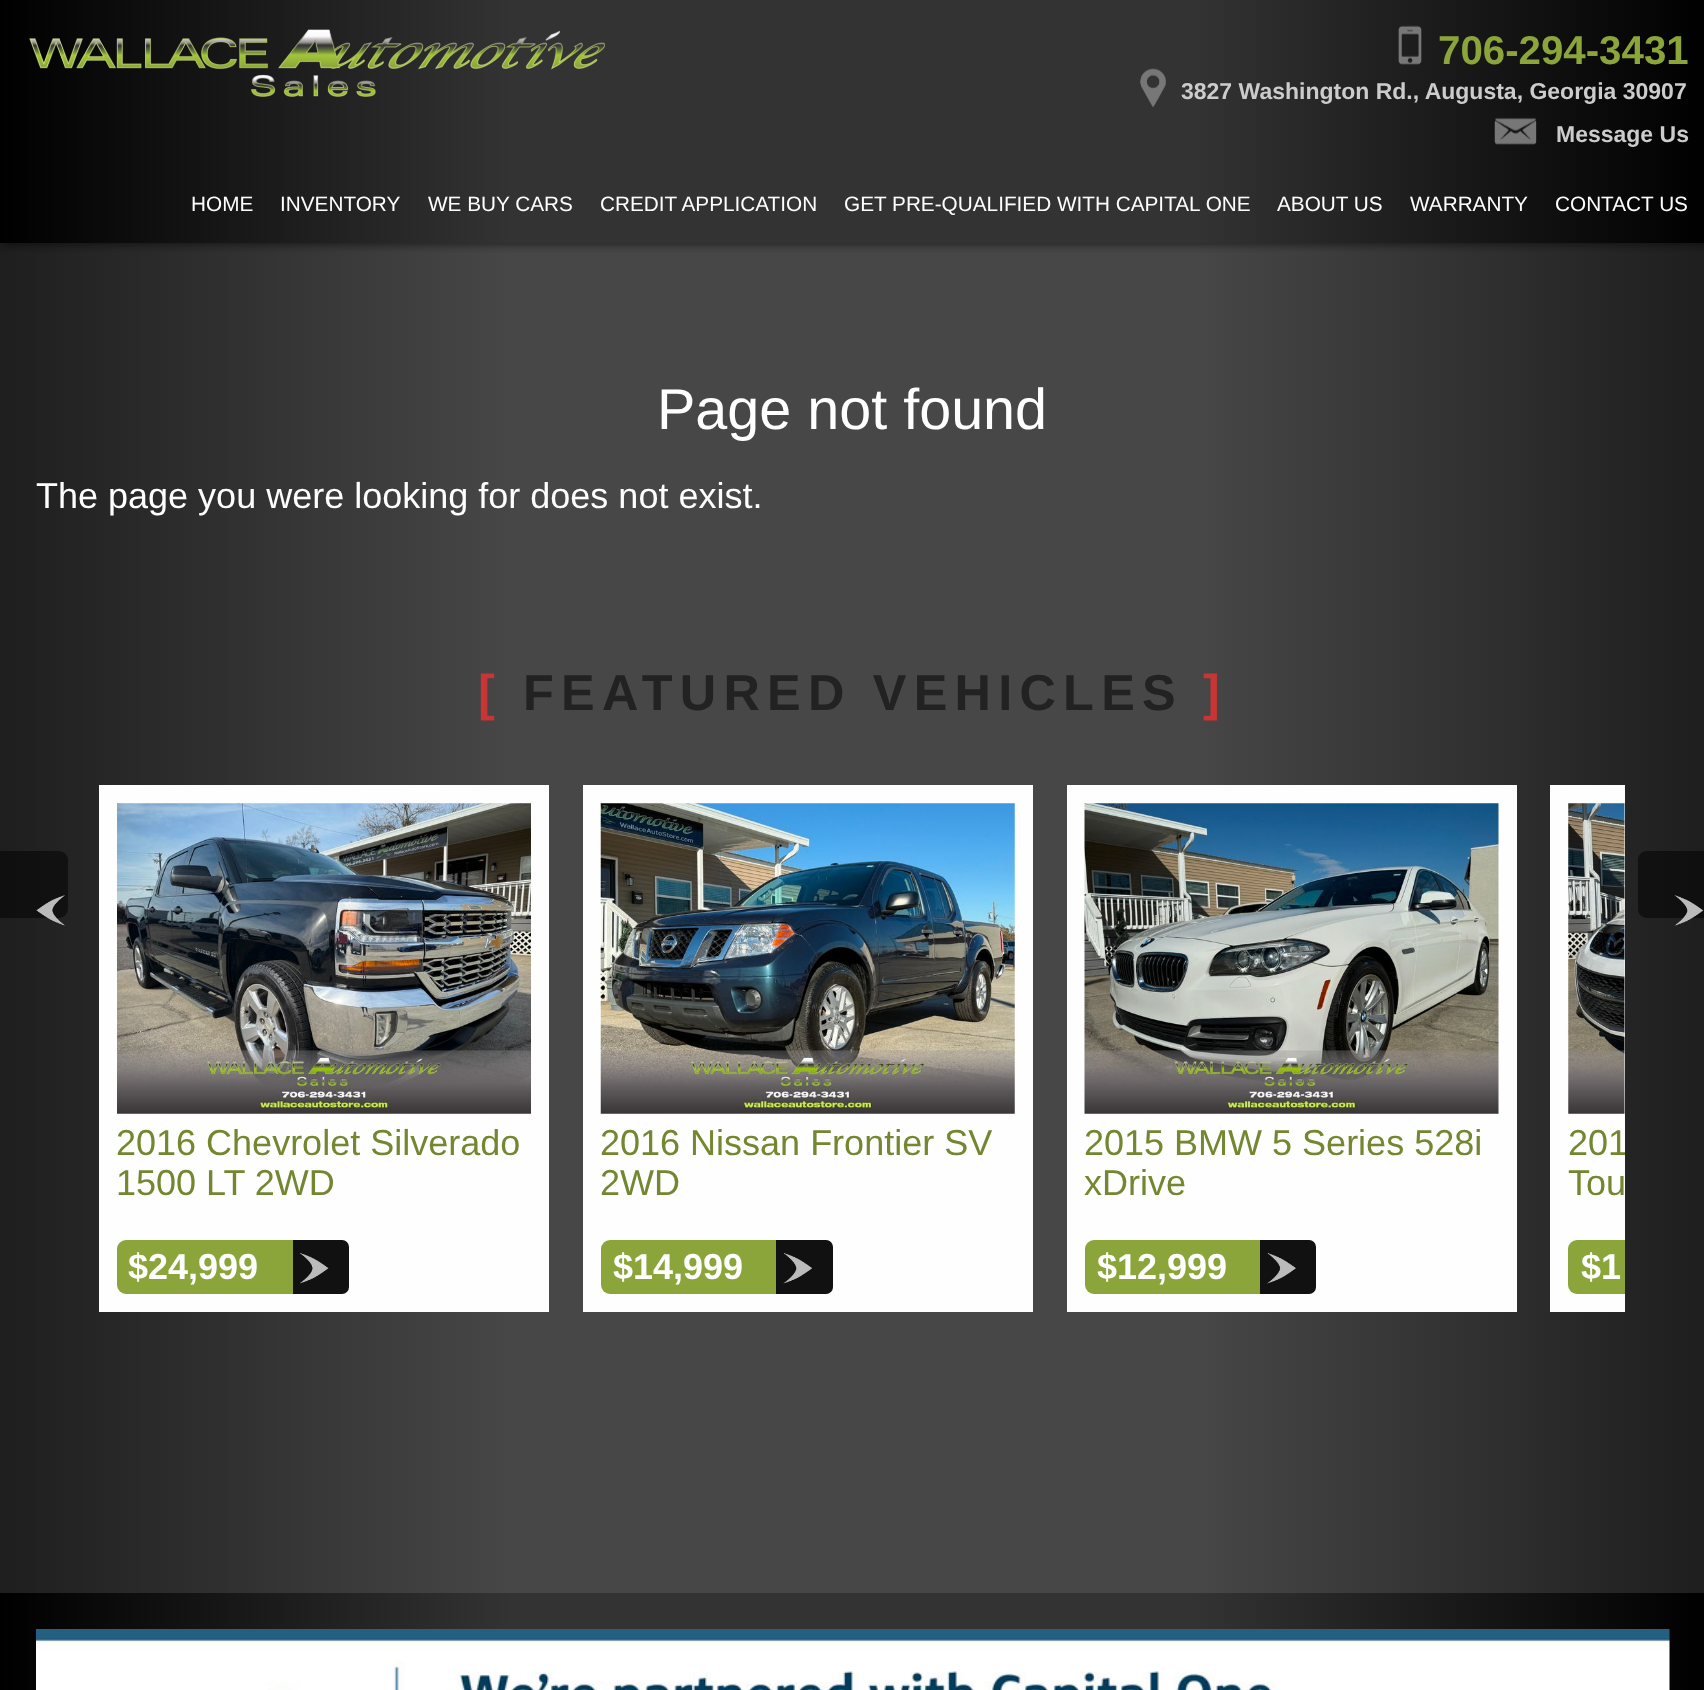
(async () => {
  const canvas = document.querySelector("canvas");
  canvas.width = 1704;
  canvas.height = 1690;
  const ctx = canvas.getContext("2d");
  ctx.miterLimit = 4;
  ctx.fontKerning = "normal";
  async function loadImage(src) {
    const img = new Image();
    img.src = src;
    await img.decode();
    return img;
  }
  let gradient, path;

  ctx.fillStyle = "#ffffff";
  ctx.fillRect(0, 0, 1704, 1690);
  gradient = ctx.createLinearGradient(0, 1441, 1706, 1441);
  gradient.addColorStop(0, "#000000");
  gradient.addColorStop(0.3, "#333333");
  gradient.addColorStop(0.7, "#333333");
  gradient.addColorStop(1, "#000000");
  ctx.fillStyle = gradient;
  ctx.fillRect(0, 0, 1704, 1690);
  gradient = ctx.createLinearGradient(0, 1441, 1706, 1441);
  gradient.addColorStop(0, "#1e1e1e");
  gradient.addColorStop(0.3, "#474747");
  gradient.addColorStop(0.7, "#474747");
  gradient.addColorStop(1, "#1e1e1e");
  ctx.fillStyle = gradient;
  ctx.fillRect(0, 243, 1704, 1350);
  ctx.save();
  ctx.beginPath();
  ctx.rect(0, 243, 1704, 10);
  ctx.clip();
  ctx.fillStyle = "rgba(0, 0, 0, 0.5)";
  ctx.filter = "blur(4.5px)";
  ctx.beginPath();
  ctx.rect(2, 2, 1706, 243);
  ctx.fill();
  ctx.filter = "none";
  ctx.restore();
  ctx.drawImage(await loadImage("img/1.png"), 29, 29, 576, 68);
  ctx.drawImage(await loadImage("img/2.png"), 1398, 25, 24, 40);
  ctx.drawImage(await loadImage("img/3.png"), 1140, 68, 26, 39);
  ctx.drawImage(await loadImage("img/4.png"), 1494, 117, 43, 28);
  ctx.fillStyle = "rgba(0, 0, 0, 0.5)";
  ctx.beginPath();
  ctx.roundRect(0, 851, 68, 67, [0, 9, 9, 0]);
  ctx.fill();
  ctx.drawImage(await loadImage("img/5.png"), 36, 895, 29, 31);
  path = new Path2D("M1647 851H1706V918H1647C1642 918 1638 914 1638 909V860C1638 855 1642 851 1647 851Z");
  ctx.fill(path);
  ctx.drawImage(await loadImage("img/6.png"), 1674, 895, 30, 31);
  ctx.fillStyle = "#fefefe";
  ctx.fillRect(99, 785, 450, 527);
  ctx.drawImage(await loadImage("img/7.png"), 117, 803, 414, 311);
  ctx.fillStyle = "#8ba53b";
  ctx.beginPath();
  ctx.roundRect(117, 1240, 232, 54, 9);
  ctx.fill();
  ctx.fillStyle = "#111111";
  ctx.beginPath();
  ctx.roundRect(293, 1240, 56, 54, [0, 7, 7, 0]);
  ctx.fill();
  ctx.drawImage(await loadImage("img/8.png"), 300, 1253, 29, 31);
  ctx.fillStyle = "#fefefe";
  ctx.fillRect(583, 785, 450, 527);
  ctx.drawImage(await loadImage("img/9.png"), 600, 803, 415, 311);
  ctx.fillStyle = "#8ba53b";
  ctx.beginPath();
  ctx.roundRect(601, 1240, 232, 54, 9);
  ctx.fill();
  ctx.fillStyle = "#111111";
  ctx.beginPath();
  ctx.roundRect(776, 1240, 57, 54, [0, 7, 7, 0]);
  ctx.fill();
  ctx.drawImage(await loadImage("img/10.png"), 783, 1253, 29, 31);
  ctx.fillStyle = "#fefefe";
  ctx.fillRect(1067, 785, 450, 527);
  ctx.drawImage(await loadImage("img/11.png"), 1084, 803, 415, 311);
  ctx.fillStyle = "#8ba53b";
  ctx.beginPath();
  ctx.roundRect(1085, 1240, 231, 54, 9);
  ctx.fill();
  ctx.fillStyle = "#111111";
  ctx.beginPath();
  ctx.roundRect(1260, 1240, 56, 54, [0, 7, 7, 0]);
  ctx.fill();
  ctx.drawImage(await loadImage("img/12.png"), 1267, 1252, 29, 32);
  ctx.fillStyle = "#fefefe";
  ctx.fillRect(1550, 785, 75, 527);
  ctx.drawImage(await loadImage("img/13.png"), 1568, 803, 57, 311);
  ctx.fillStyle = "#8ba53b";
  ctx.beginPath();
  ctx.roundRect(1568, 1240, 57, 54, [9, 0, 0, 9]);
  ctx.fill();
  ctx.drawImage(await loadImage("img/14.png"), 36, 1629, 1634, 61);
  ctx.font = "bold 40.25px Liberation Sans";
  ctx.fillText("706-294-3431", 1438, 64);
  ctx.font = "bold 23px Liberation Sans";
  ctx.fillStyle = "#cccccc";
  ctx.fillText("3827 Washington Rd., Augusta, Georgia 30907", 1181, 99);
  ctx.fillText("Message Us", 1556, 142);
  ctx.font = "20.75px Liberation Sans";
  ctx.fillStyle = "#fefefe";
  for (const [text, x, y] of [
    ["HOME", 191, 211],
    ["INVENTORY", 280, 211],
    ["WE BUY CARS", 428, 211],
    ["CREDIT APPLICATION", 600, 211],
    ["GET PRE-QUALIFIED WITH CAPITAL ONE", 844, 211],
    ["ABOUT US", 1277, 211],
    ["WARRANTY", 1410, 211],
    ["CONTACT US", 1555, 211],
  ]) {
    ctx.fillText(text, x, y);
  }
  ctx.font = "57.5px Liberation Sans";
  ctx.fillText("Page not found", 657, 429);
  ctx.font = "36px Liberation Sans";
  ctx.fillText("The page you were looking for does not exist.", 36, 508);
  ctx.letterSpacing = "7.25px";
  ctx.font = "bold 50.4px Liberation Sans";
  ctx.fillStyle = "#c73535";
  ctx.fillText("[", 478, 710);
  ctx.fillStyle = "#222222";
  ctx.fillText("FEATURED VEHICLES", 523, 710);
  ctx.fillStyle = "#c73535";
  ctx.fillText("]", 1203, 710);
  ctx.letterSpacing = "0px";
  ctx.font = "36px Liberation Sans";
  ctx.fillStyle = "#728730";
  ctx.fillText("2016 Chevrolet Silverado", 116, 1155);
  ctx.fillText("1500 LT 2WD", 116, 1195);
  ctx.font = "bold 36px Liberation Sans";
  ctx.fillStyle = "#fefefe";
  ctx.fillText("$24,999", 128, 1279);
  ctx.font = "36px Liberation Sans";
  ctx.fillStyle = "#728730";
  ctx.fillText("2016 Nissan Frontier SV", 600, 1155);
  ctx.fillText("2WD", 600, 1195);
  ctx.font = "bold 36px Liberation Sans";
  ctx.fillStyle = "#fefefe";
  ctx.fillText("$14,999", 613, 1279);
  ctx.font = "36px Liberation Sans";
  ctx.fillStyle = "#728730";
  ctx.fillText("2015 BMW 5 Series 528i", 1084, 1155);
  ctx.fillText("xDrive", 1084, 1195);
  ctx.font = "bold 36px Liberation Sans";
  ctx.fillStyle = "#fefefe";
  ctx.fillText("$12,999", 1097, 1279);
  ctx.save();
  ctx.beginPath();
  ctx.rect(81, 770, 1544, 560);
  ctx.clip();
  ctx.font = "36px Liberation Sans";
  ctx.fillStyle = "#728730";
  ctx.fillText("201", 1568, 1155);
  ctx.restore();
  ctx.font = "36px Liberation Sans";
  ctx.fillStyle = "#728730";
  ctx.fillText("Tou", 1568, 1195);
  ctx.font = "bold 36px Liberation Sans";
  ctx.fillStyle = "#fefefe";
  ctx.fillText("$1", 1581, 1279);
})();
